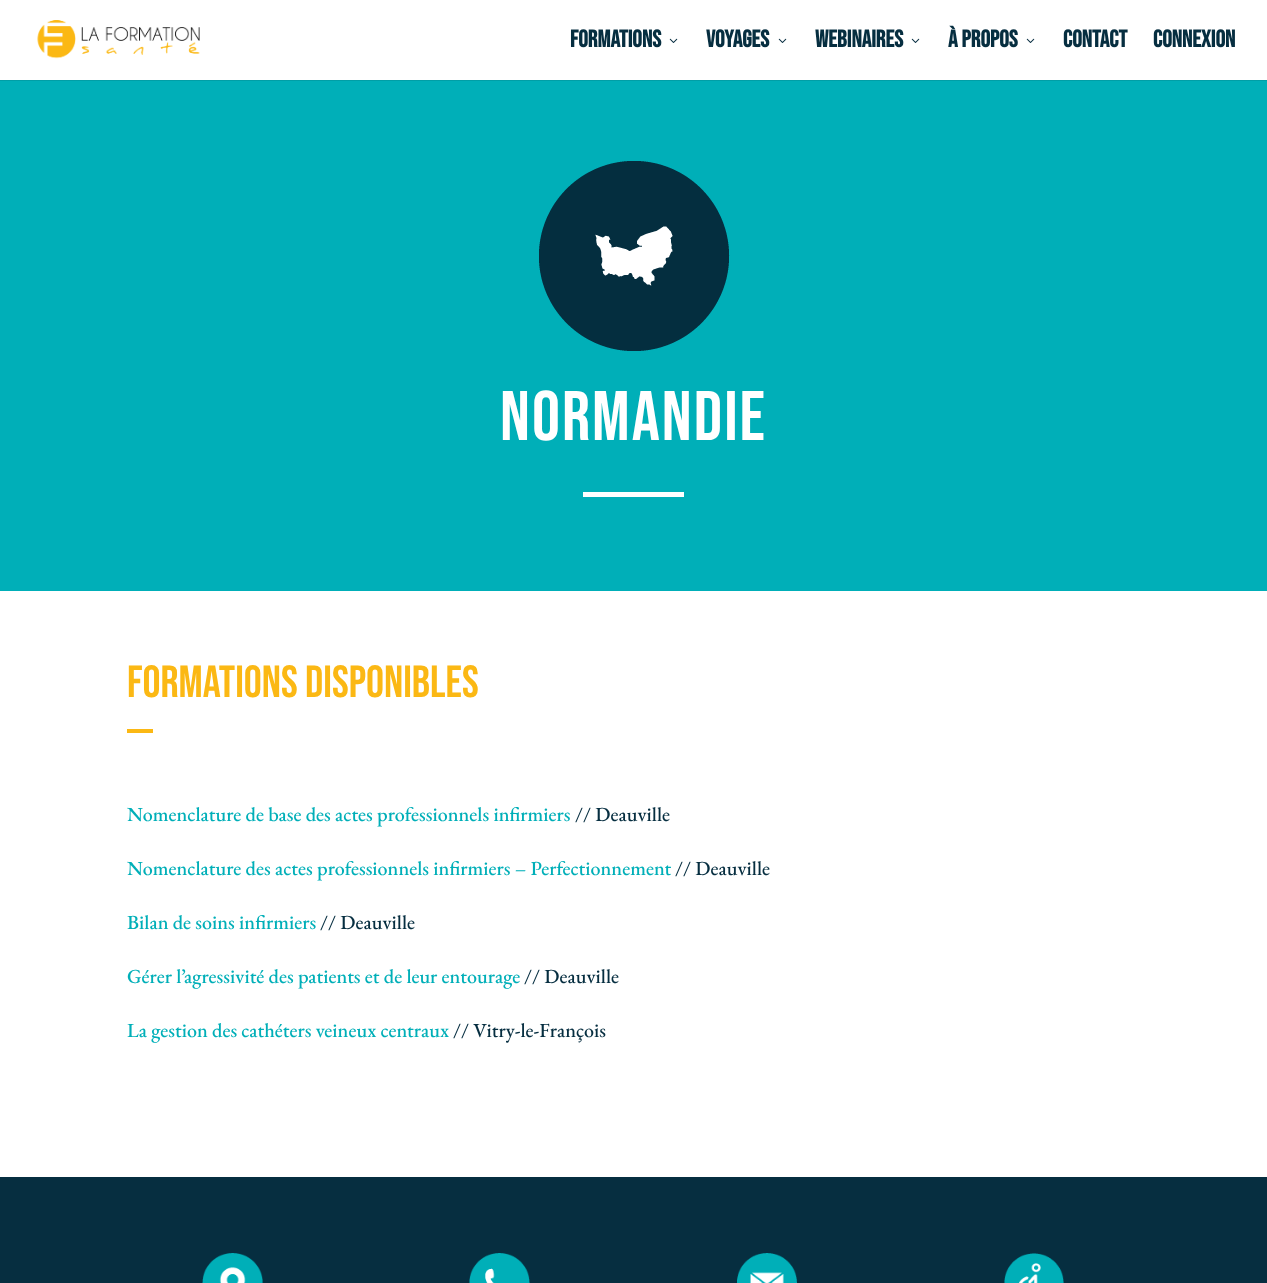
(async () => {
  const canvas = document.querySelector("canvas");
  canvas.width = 1267;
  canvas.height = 1283;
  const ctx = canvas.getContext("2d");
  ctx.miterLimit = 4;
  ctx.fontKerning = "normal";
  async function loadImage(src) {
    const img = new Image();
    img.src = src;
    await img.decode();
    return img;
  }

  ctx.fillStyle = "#ffffff";
  ctx.fillRect(0, 0, 1267, 1283);
  ctx.fillStyle = "#009ea6";
  ctx.fillRect(0, 80, 1267, 1);
  ctx.drawImage(await loadImage("img/1.png"), 37, 20, 163, 39);
  ctx.drawImage(await loadImage("img/2.png"), 669, 38, 9, 5);
  ctx.drawImage(await loadImage("img/2.png"), 778, 38, 9, 5);
  ctx.drawImage(await loadImage("img/2.png"), 911, 38, 9, 5);
  ctx.drawImage(await loadImage("img/2.png"), 1026, 38, 9, 5);
  ctx.fillStyle = "#00afb8";
  ctx.fillRect(0, 81, 1267, 510);
  ctx.drawImage(await loadImage("img/3.png"), 539, 161, 191, 190);
  for (const [x, y, w, h, color] of [
    [583, 492, 101, 5, "#ffffff"],
    [127, 729, 26, 4, "#fbb814"],
    [0, 1177, 1267, 106, "#062e40"],
  ]) {
    ctx.fillStyle = color;
    ctx.fillRect(x, y, w, h);
  }
  ctx.drawImage(await loadImage("img/4.png"), 202, 1253, 61, 30);
  ctx.drawImage(await loadImage("img/5.png"), 469, 1253, 61, 30);
  ctx.drawImage(await loadImage("img/6.png"), 737, 1253, 60, 30);
  ctx.drawImage(await loadImage("img/7.png"), 1004, 1253, 60, 30);
  ctx.font = "bold 24px Bebas Neue";
  for (const [text, x, y] of [
    ["FORMATIONS", 570, 47],
    ["VOYAGES", 706, 47],
    ["WEBINAIRES", 815, 47],
    ["à PROPOS", 948, 47],
    ["CONTACT", 1063, 47],
    ["CONNEXION", 1153, 47],
  ]) {
    ctx.fillText(text, x, y);
  }
  ctx.letterSpacing = "2px";
  ctx.font = "70px Bebas Neue";
  ctx.fillStyle = "#ffffff";
  ctx.fillText("Normandie", 500, 440);
  ctx.letterSpacing = "0px";
  ctx.font = "45px Bebas Neue";
  ctx.fillStyle = "#fbb814";
  ctx.fillText("Formations disponibles", 127, 697);
  ctx.font = "500 20px EB Garamond";
  ctx.fillStyle = "#00afb8";
  ctx.fillText("Nomenclature de base des actes professionnels infirmiers", 127, 821);
  ctx.fillStyle = "#062e40";
  ctx.fillText("// Deauville", 575, 821);
  ctx.fillStyle = "#00afb8";
  ctx.fillText("Nomenclature des actes professionnels infirmiers – Perfectionnement", 127, 875);
  ctx.fillStyle = "#062e40";
  ctx.fillText("// Deauville", 675, 875);
  ctx.fillStyle = "#00afb8";
  ctx.fillText("Bilan de soins infirmiers", 127, 929);
  ctx.fillStyle = "#062e40";
  ctx.fillText("// Deauville", 320, 929);
  ctx.fillStyle = "#00afb8";
  ctx.fillText("Gérer l’agressivité des patients et de leur entourage", 127, 983);
  ctx.fillStyle = "#062e40";
  ctx.fillText("// Deauville", 524, 983);
  ctx.fillStyle = "#00afb8";
  ctx.fillText("La gestion des cathéters veineux centraux", 127, 1037);
  ctx.fillStyle = "#062e40";
  ctx.fillText("// Vitry-le-François", 453, 1037);
})();
